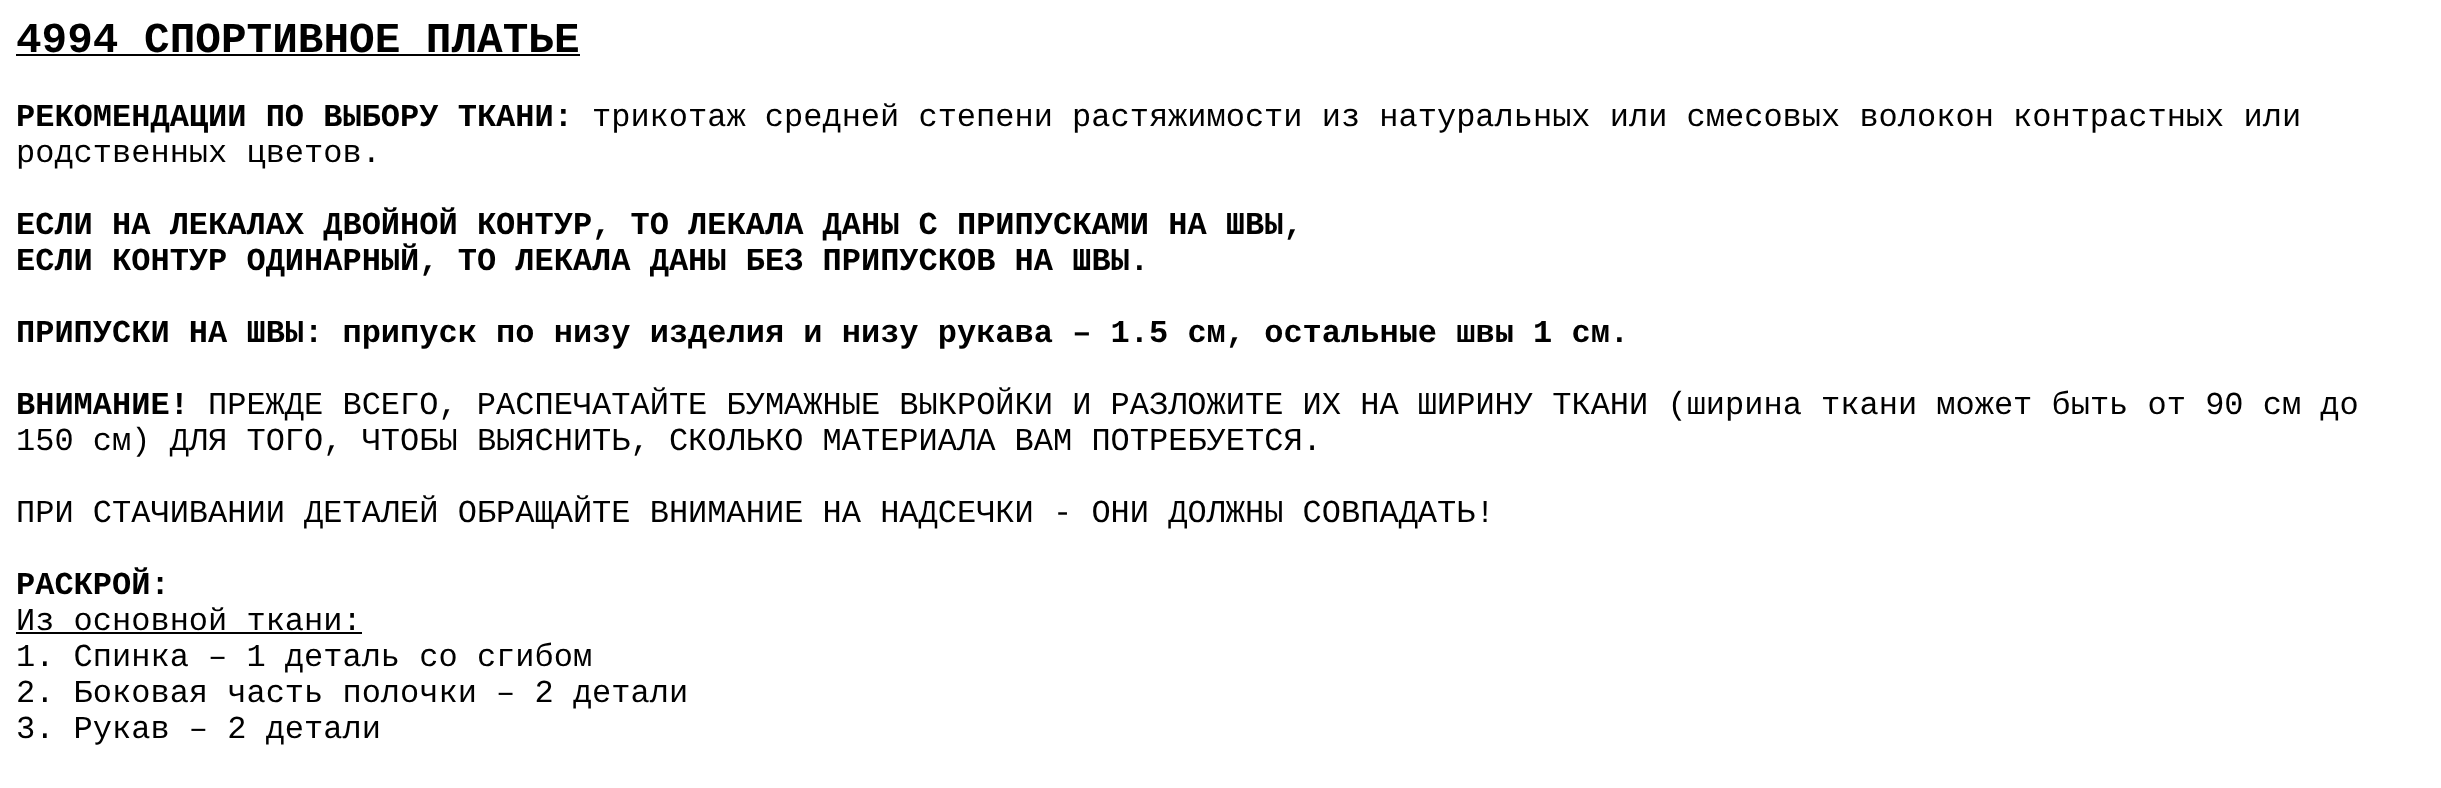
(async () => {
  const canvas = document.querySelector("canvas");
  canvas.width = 2441;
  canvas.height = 788;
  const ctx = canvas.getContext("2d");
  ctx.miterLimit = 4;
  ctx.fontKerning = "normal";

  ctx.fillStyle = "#ffffff";
  ctx.fillRect(0, 0, 2441, 788);
  ctx.fillStyle = "#000000";
  ctx.fillRect(16, 54, 564, 2);
  ctx.fillRect(16, 632, 346, 2);
  ctx.font = "bold 42.7px Liberation Mono";
  ctx.fillText("4994 СПОРТИВНОЕ ПЛАТЬЕ", 16, 52);
  ctx.font = "bold 32px Liberation Mono";
  ctx.fillText("РЕКОМЕНДАЦИИ ПО ВЫБОРУ ТКАНИ:", 16, 126);
  ctx.font = "32px Liberation Mono";
  ctx.fillText("трикотаж средней степени растяжимости из натуральных или смесовых волокон контрастных или", 592, 126);
  ctx.fillText("родственных цветов.", 16, 162);
  ctx.font = "bold 32px Liberation Mono";
  for (const [text, x, y] of [
    ["ЕСЛИ НА ЛЕКАЛАХ ДВОЙНОЙ КОНТУР, ТО ЛЕКАЛА ДАНЫ С ПРИПУСКАМИ НА ШВЫ,", 16, 234],
    ["ЕСЛИ КОНТУР ОДИНАРНЫЙ, ТО ЛЕКАЛА ДАНЫ БЕЗ ПРИПУСКОВ НА ШВЫ.", 16, 270],
    ["ПРИПУСКИ НА ШВЫ: припуск по низу изделия и низу рукава – 1.5 см, остальные швы 1 см.", 16, 342],
    ["ВНИМАНИЕ!", 16, 414],
  ]) {
    ctx.fillText(text, x, y);
  }
  ctx.font = "32px Liberation Mono";
  for (const [text, x, y] of [
    ["ПРЕЖДЕ ВСЕГО, РАСПЕЧАТАЙТЕ БУМАЖНЫЕ ВЫКРОЙКИ И РАЗЛОЖИТЕ ИХ НА ШИРИНУ ТКАНИ (ширина ткани может быть от 90 см до", 208, 414],
    ["150 см) ДЛЯ ТОГО, ЧТОБЫ ВЫЯСНИТЬ, СКОЛЬКО МАТЕРИАЛА ВАМ ПОТРЕБУЕТСЯ.", 16, 450],
    ["ПРИ СТАЧИВАНИИ ДЕТАЛЕЙ ОБРАЩАЙТЕ ВНИМАНИЕ НА НАДСЕЧКИ - ОНИ ДОЛЖНЫ СОВПАДАТЬ!", 16, 522],
  ]) {
    ctx.fillText(text, x, y);
  }
  ctx.font = "bold 32px Liberation Mono";
  ctx.fillText("РАСКРОЙ:", 16, 594);
  ctx.font = "32px Liberation Mono";
  for (const [text, x, y] of [
    ["Из основной ткани:", 16, 630],
    ["1. Спинка – 1 деталь со сгибом", 16, 666],
    ["2. Боковая часть полочки – 2 детали", 16, 702],
    ["3. Рукав – 2 детали", 16, 738],
  ]) {
    ctx.fillText(text, x, y);
  }
})();
